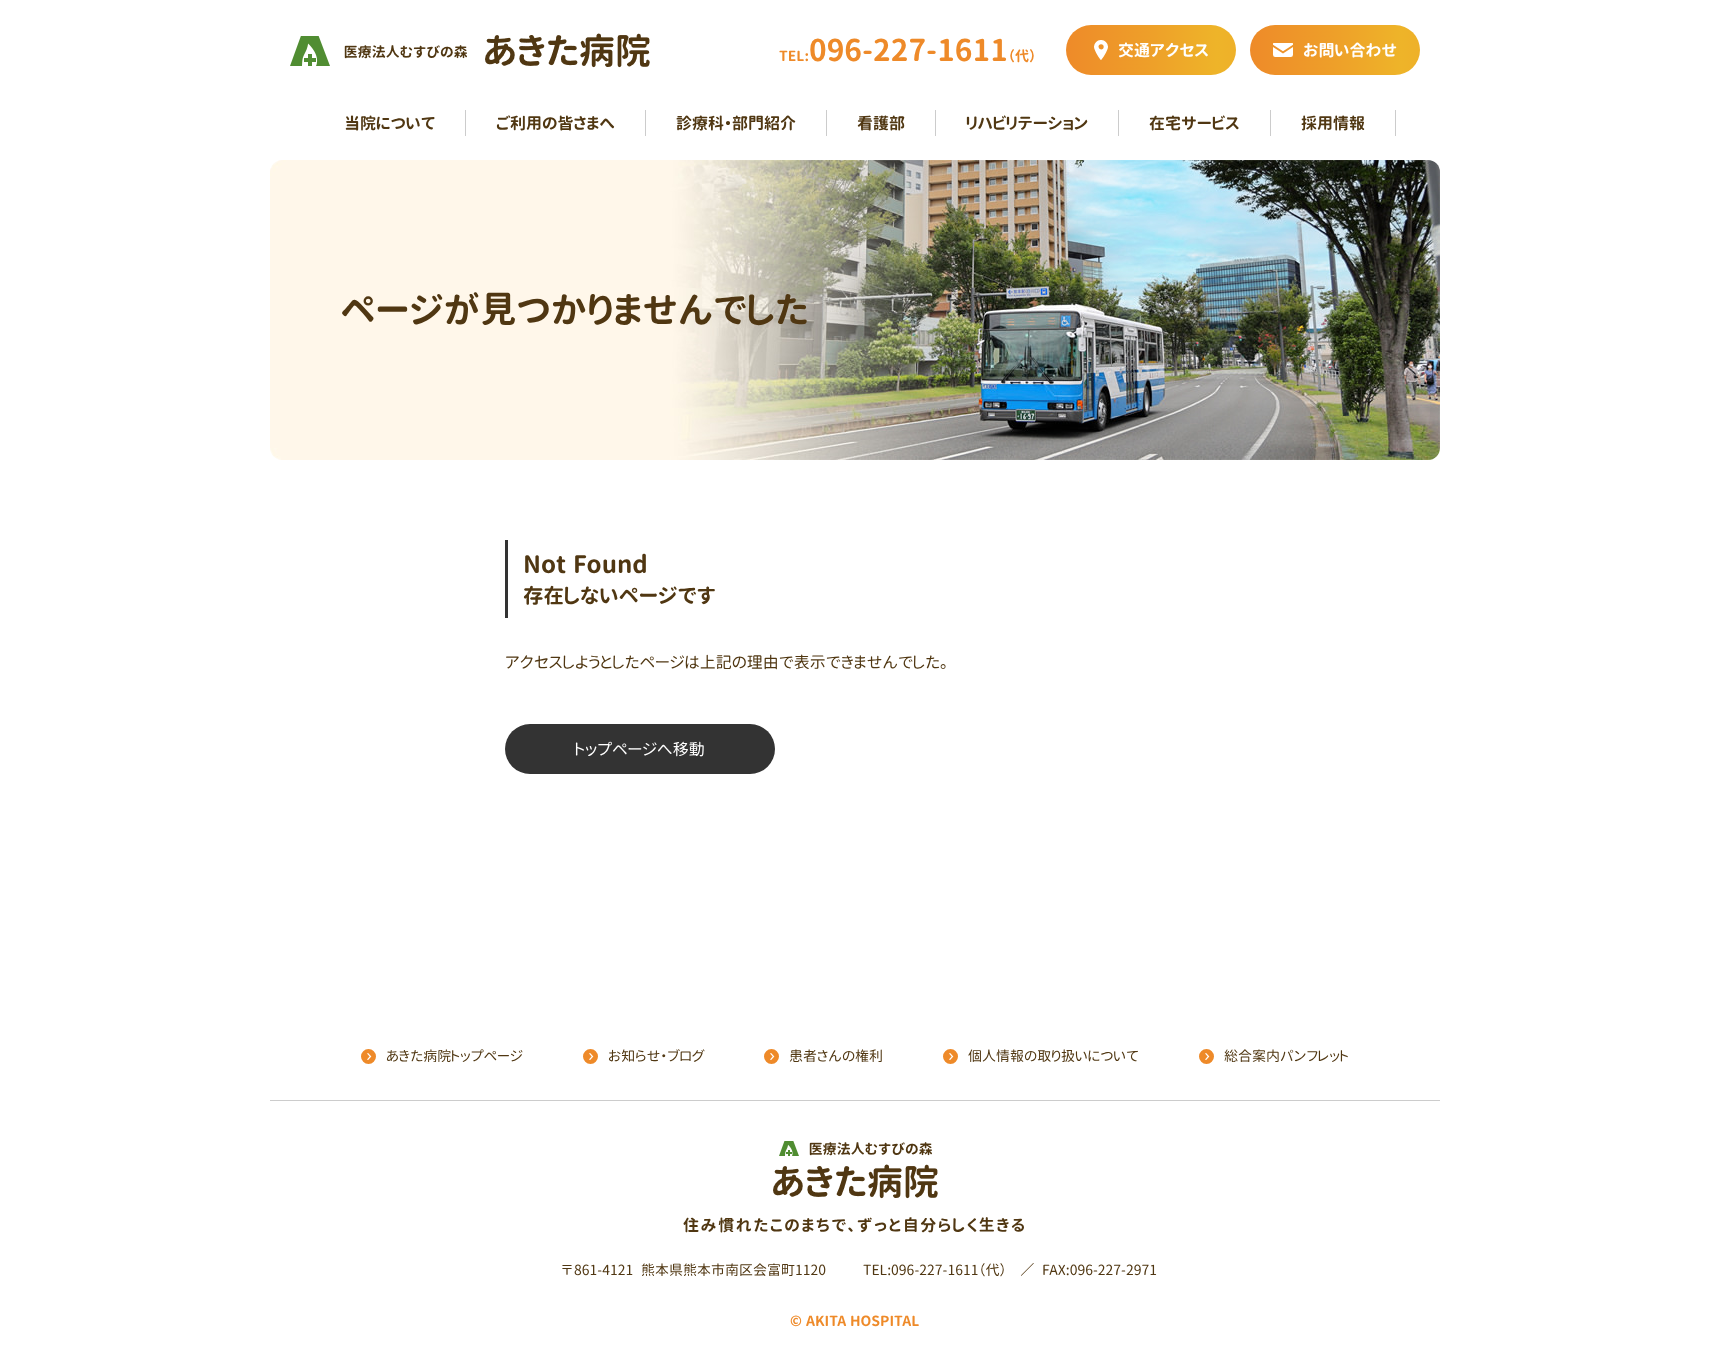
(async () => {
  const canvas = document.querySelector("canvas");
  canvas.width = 1710;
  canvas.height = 1366;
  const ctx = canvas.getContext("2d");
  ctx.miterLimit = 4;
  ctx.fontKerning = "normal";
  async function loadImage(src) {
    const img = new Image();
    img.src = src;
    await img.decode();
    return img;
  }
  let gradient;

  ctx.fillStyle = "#ffffff";
  ctx.fillRect(0, 0, 1710, 1366);
  ctx.drawImage(await loadImage("img/1.png"), 290, 33, 360, 35);
  gradient = ctx.createLinearGradient(1404, 50, 1064, 50);
  gradient.addColorStop(0, "#ee8a29");
  gradient.addColorStop(0.2, "#ee9f29");
  gradient.addColorStop(0.55, "#eeb429");
  gradient.addColorStop(0.75, "#ee9f29");
  gradient.addColorStop(1, "#ee8a29");
  ctx.fillStyle = gradient;
  ctx.beginPath();
  ctx.roundRect(1066, 25, 170, 50, 25);
  ctx.fill();
  ctx.drawImage(await loadImage("img/2.png"), 1094, 40, 14, 20);
  gradient = ctx.createLinearGradient(1588, 50, 1248, 50);
  gradient.addColorStop(0, "#ee8a29");
  gradient.addColorStop(0.2, "#ee9f29");
  gradient.addColorStop(0.55, "#eeb429");
  gradient.addColorStop(0.75, "#ee9f29");
  gradient.addColorStop(1, "#ee8a29");
  ctx.fillStyle = gradient;
  ctx.beginPath();
  ctx.roundRect(1250, 25, 170, 50, 25);
  ctx.fill();
  ctx.drawImage(await loadImage("img/3.png"), 1273, 43, 20, 14);
  for (const [x, y, w, h, color] of [
    [465, 110, 1, 26, "#cccccc"],
    [645, 110, 1, 26, "#cccccc"],
    [826, 110, 1, 26, "#cccccc"],
    [935, 110, 1, 26, "#cccccc"],
    [1118, 110, 1, 26, "#cccccc"],
    [1270, 110, 1, 26, "#cccccc"],
    [1395, 110, 1, 26, "#cccccc"],
  ]) {
    ctx.fillStyle = color;
    ctx.fillRect(x, y, w, h);
  }
  ctx.drawImage(await loadImage("img/4.png"), 270, 160, 1170, 300);
  ctx.fillStyle = "#333333";
  ctx.fillRect(505, 540, 3, 78);
  ctx.beginPath();
  ctx.roundRect(505, 724, 270, 50, 25);
  ctx.fill();
  ctx.fillStyle = "#cccccc";
  ctx.fillRect(270, 1100, 1170, 1);
  ctx.drawImage(await loadImage("img/5.png"), 361, 1049, 15, 15);
  ctx.drawImage(await loadImage("img/5.png"), 583, 1049, 15, 15);
  ctx.drawImage(await loadImage("img/5.png"), 764, 1049, 15, 15);
  ctx.drawImage(await loadImage("img/5.png"), 943, 1049, 15, 15);
  ctx.drawImage(await loadImage("img/5.png"), 1199, 1049, 15, 15);
  ctx.drawImage(await loadImage("img/6.png"), 773, 1141, 165, 58);
  ctx.font = "bold 14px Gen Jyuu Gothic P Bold";
  ctx.fillStyle = "#ee8a29";
  ctx.fillText("TEL:", 779, 61);
  ctx.font = "bold 30px Gen Jyuu Gothic P Bold";
  ctx.fillText("096-227-1611", 809, 61);
  ctx.font = "bold 14px Gen Jyuu Gothic P Bold";
  ctx.fillText("（代）", 1008, 61);
  ctx.font = "bold 16px Gen Jyuu Gothic P Bold";
  ctx.fillStyle = "#ffffff";
  ctx.fillText("交通アクセス", 1118, 56);
  ctx.fillText("お問い合わせ", 1303, 56);
  ctx.fillStyle = "#503712";
  for (const [text, x, y] of [
    ["当院について", 344, 129],
    ["ご利用の皆さまへ", 496, 129],
    ["診療科・部門紹介", 676, 129],
    ["看護部", 857, 129],
    ["リハビリテーション", 966, 129],
    ["在宅サービス", 1149, 129],
    ["採用情報", 1301, 129],
  ]) {
    ctx.fillText(text, x, y);
  }
  ctx.font = "bold 36px Gen Jyuu Gothic P Bold";
  ctx.fillText("ページが見つかりませんでした", 340, 323);
  ctx.font = "bold 24px Gen Jyuu Gothic P Bold";
  ctx.fillText("Not", 523, 573);
  ctx.fillText("Found", 573, 573);
  ctx.font = "bold 20.5px Gen Jyuu Gothic P Bold";
  ctx.fillText("存在しないページです", 523, 603);
  ctx.font = "16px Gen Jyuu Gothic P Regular";
  ctx.fillText("アクセスしようとしたページは上記の理由で表示できませんでした。", 505, 668);
  ctx.fillStyle = "#ffffff";
  ctx.fillText("トップページへ移動", 575, 755);
  ctx.font = "14px Gen Jyuu Gothic P Regular";
  ctx.fillStyle = "#503712";
  for (const [text, x, y] of [
    ["あきた病院トップページ", 386, 1061],
    ["お知らせ・ブログ", 608, 1061],
    ["患者さんの権利", 789, 1061],
    ["個人情報の取り扱いについて", 968, 1061],
    ["総合案内パンフレット", 1224, 1061],
  ]) {
    ctx.fillText(text, x, y);
  }
  ctx.letterSpacing = "1.6px";
  ctx.font = "bold 16px Gen Jyuu Gothic P Bold";
  ctx.fillText("住み慣れたこのまちで、ずっと自分らしく生きる", 683, 1231);
  ctx.letterSpacing = "0px";
  ctx.font = "14px Gen Jyuu Gothic P Regular";
  for (const [text, x, y] of [
    ["〒861-4121", 560, 1275],
    ["熊本県熊本市南区会富町1120", 641, 1275],
    ["TEL:096-227-1611（代）", 863, 1275],
    ["／", 1020, 1275],
    ["FAX:096-227-2971", 1042, 1275],
  ]) {
    ctx.fillText(text, x, y);
  }
  ctx.font = "bold 14px Gen Jyuu Gothic P Bold";
  ctx.fillStyle = "#ee8a29";
  for (const [text, x, y] of [
    ["©", 790, 1326],
    ["AKITA", 806, 1326],
    ["HOSPITAL", 850, 1326],
  ]) {
    ctx.fillText(text, x, y);
  }
})();
